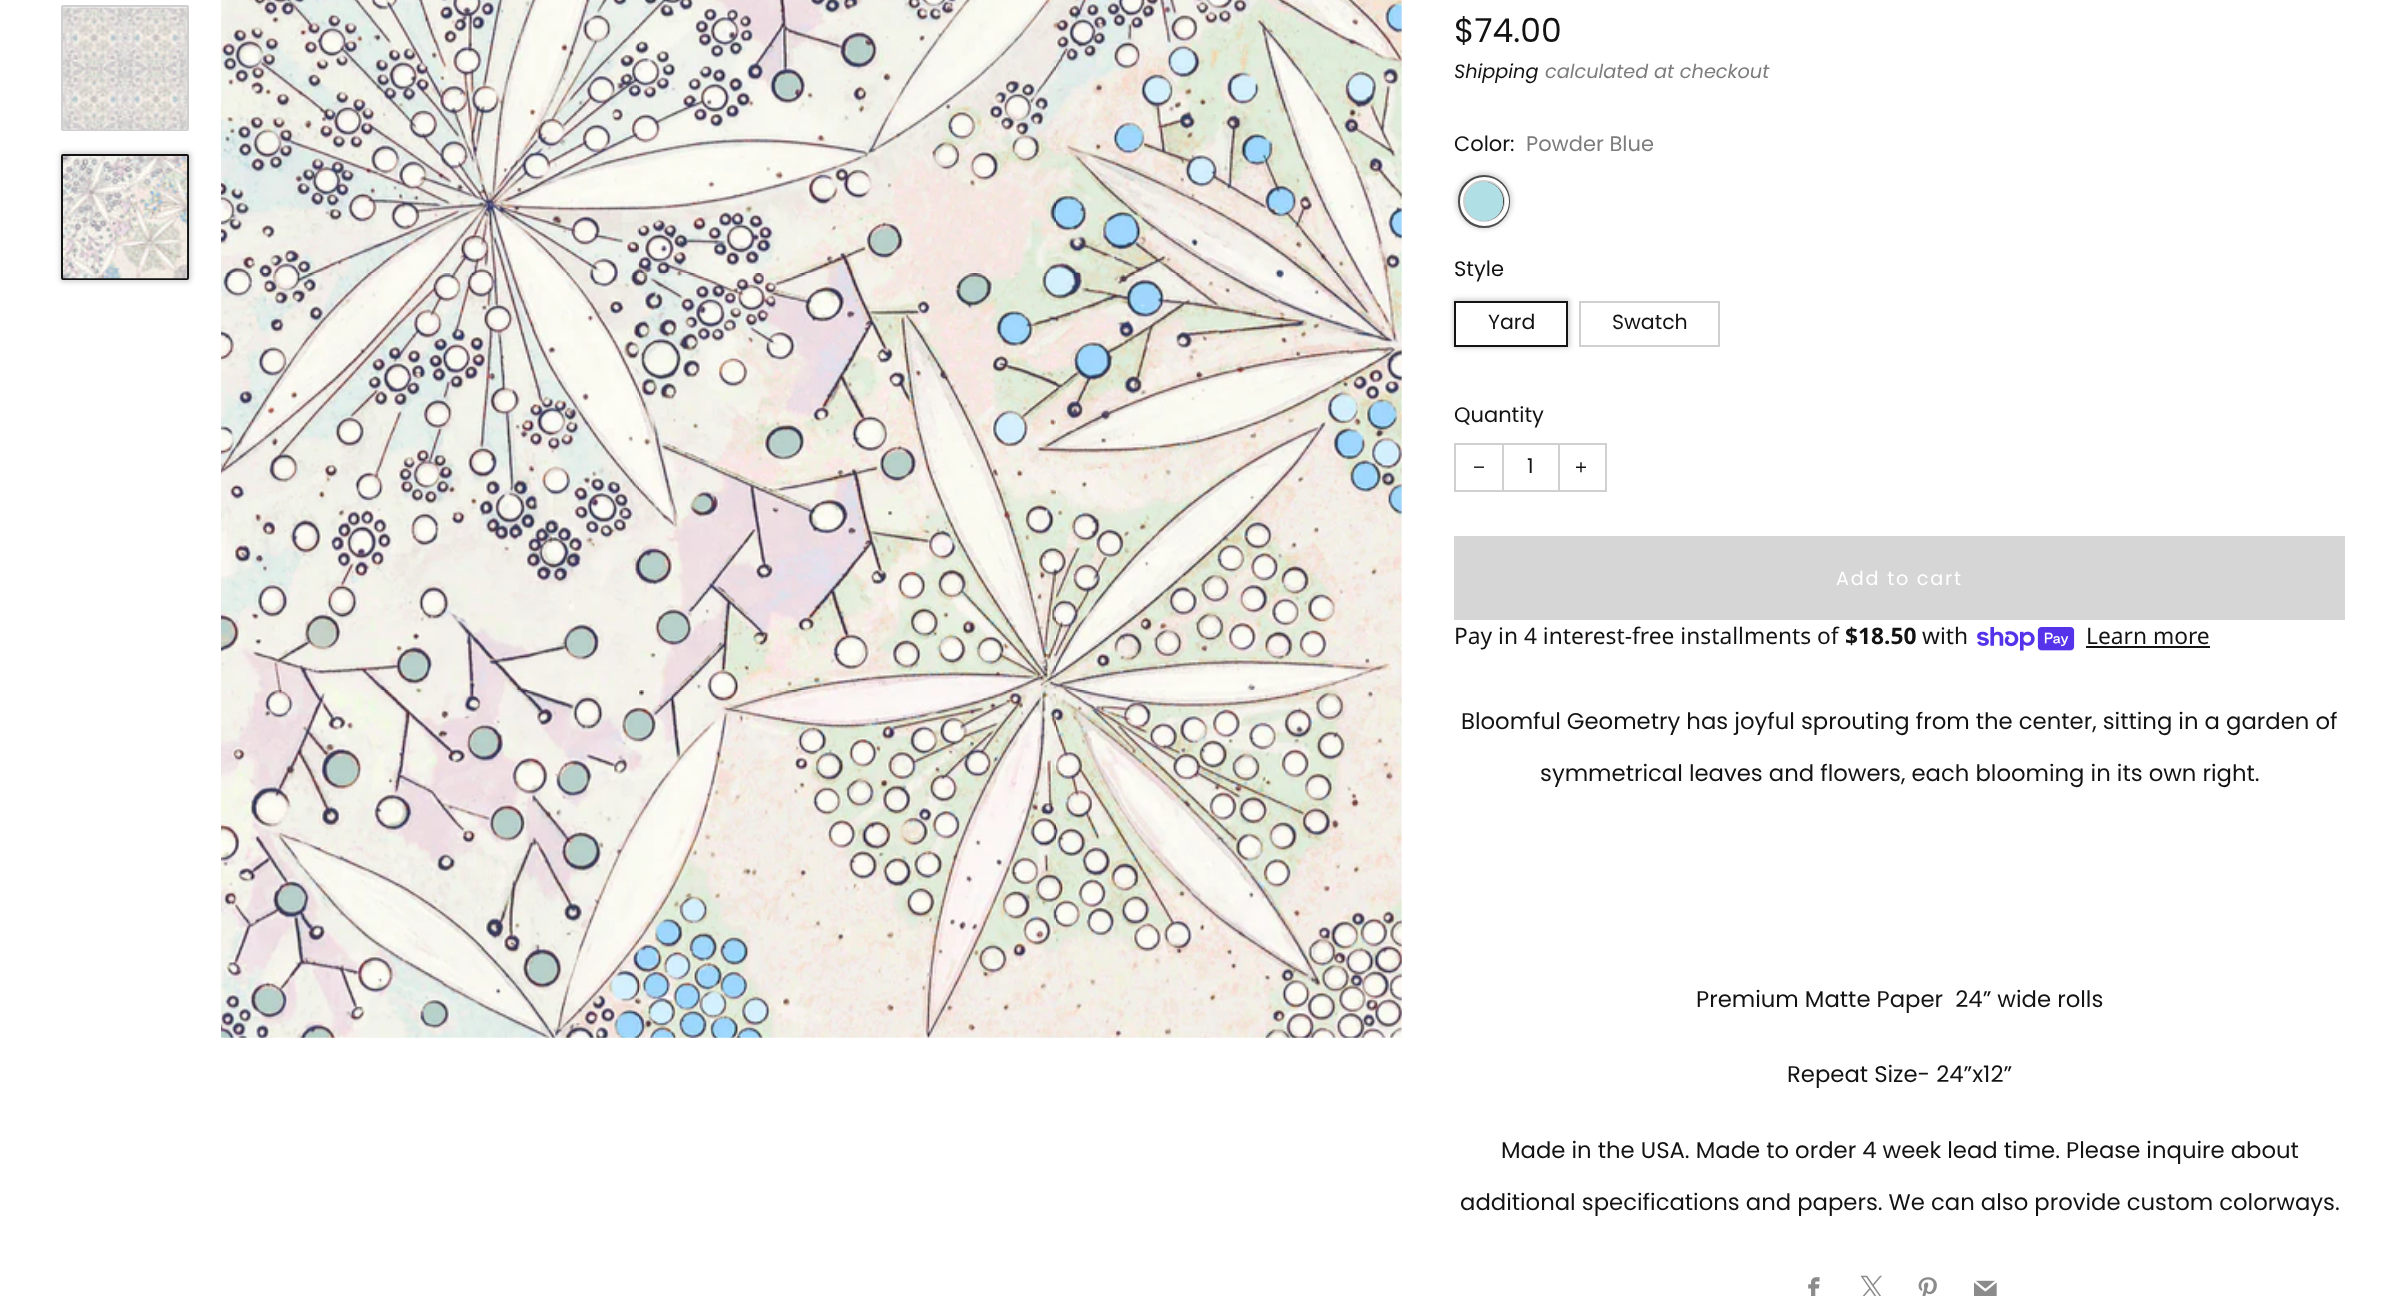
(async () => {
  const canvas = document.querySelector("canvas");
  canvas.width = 2396;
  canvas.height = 1296;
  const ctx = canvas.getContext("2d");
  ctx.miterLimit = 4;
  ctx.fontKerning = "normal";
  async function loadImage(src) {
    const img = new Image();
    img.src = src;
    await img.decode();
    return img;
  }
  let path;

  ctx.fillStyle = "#ffffff";
  ctx.fillRect(0, 0, 2396, 1296);
  ctx.beginPath();
  ctx.roundRect(62, 6, 126, 124, 1);
  ctx.strokeStyle = "#d0d0d0";
  ctx.lineWidth = 2;
  ctx.stroke();
  ctx.drawImage(await loadImage("img/1.png"), 63, 7, 124, 123);
  ctx.fillStyle = "rgba(19, 19, 19, 0.2)";
  ctx.filter = "blur(2.5px)";
  ctx.beginPath();
  ctx.roundRect(60, 152, 131, 130, 4);
  ctx.fill();
  ctx.filter = "none";
  ctx.beginPath();
  ctx.roundRect(62, 155, 126, 124, 1);
  ctx.strokeStyle = "#131313";
  ctx.stroke();
  ctx.drawImage(await loadImage("img/2.png"), 63, 156, 125, 123);
  ctx.drawImage(await loadImage("img/3.png"), 221, 0, 1181, 1038);
  ctx.filter = "blur(2.5px)";
  ctx.beginPath();
  ctx.roundRect(1456, 173, 56, 56, 28);
  ctx.fill();
  ctx.filter = "none";
  ctx.beginPath();
  ctx.roundRect(1461.5, 178.5, 45, 46, 22.5);
  ctx.strokeStyle = "rgba(19, 19, 19, 0.7)";
  ctx.lineWidth = 7;
  ctx.stroke();
  ctx.beginPath();
  ctx.arc(1484.5, 201.5, 22, 0, Math.PI * 2);
  ctx.strokeStyle = "#ffffff";
  ctx.lineWidth = 5;
  ctx.stroke();
  ctx.beginPath();
  ctx.arc(1484, 201, 20, 0, Math.PI * 2);
  ctx.strokeStyle = "rgba(19, 19, 19, 0.2)";
  ctx.lineWidth = 2;
  ctx.stroke();
  ctx.fillStyle = "#b0e0e6";
  ctx.beginPath();
  ctx.roundRect(1465, 182, 38, 39, 19);
  ctx.fill();
  ctx.save();
  path = new Path2D("M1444 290H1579V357H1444ZM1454 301H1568V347H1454Z");
  ctx.clip(path, "evenodd");
  ctx.fillStyle = "rgba(19, 19, 19, 0.2)";
  ctx.filter = "blur(2.5px)";
  ctx.beginPath();
  ctx.rect(1453, 299, 117, 49);
  ctx.fill();
  ctx.filter = "none";
  ctx.restore();
  ctx.strokeStyle = "#131313";
  ctx.strokeRect(1455, 302, 112, 44);
  ctx.strokeStyle = "#d0d0d0";
  ctx.strokeRect(1580, 302, 139, 44);
  ctx.strokeRect(1455, 444, 151, 47);
  for (const [x, y, w, h, color] of [
    [1558, 445, 2, 45, "#d0d0d0"],
    [1502, 445, 2, 45, "#d0d0d0"],
    [1454, 536, 891, 84, "#d6d6d6"],
  ]) {
    ctx.fillStyle = color;
    ctx.fillRect(x, y, w, h);
  }
  ctx.drawImage(await loadImage("img/4.png"), 1977, 627, 98, 24);
  ctx.fillStyle = "#131313";
  ctx.fillRect(2086, 646, 124, 2);
  ctx.drawImage(await loadImage("img/5.png"), 1808, 1277, 12, 19);
  ctx.drawImage(await loadImage("img/6.png"), 1860, 1275, 22, 21);
  ctx.drawImage(await loadImage("img/7.png"), 1918, 1277, 19, 19);
  ctx.drawImage(await loadImage("img/8.png"), 1974, 1280, 23, 16);
  ctx.font = "33px Poppins";
  ctx.fillText("$74.00", 1454, 42);
  ctx.font = "italic 19.3px Poppins";
  ctx.fillText("Shipping", 1454, 78);
  ctx.fillStyle = "#7d7d7d";
  ctx.fillText("calculated at checkout", 1545, 78);
  ctx.font = "21px Poppins";
  ctx.fillStyle = "#131313";
  ctx.fillText("Color:", 1454, 151);
  ctx.fillStyle = "#7d7d7d";
  ctx.fillText("Powder Blue", 1526, 151);
  ctx.fillStyle = "#131313";
  ctx.fillText("Style", 1454, 276);
  ctx.font = "20.5px Poppins";
  ctx.fillText("Yard", 1488, 329);
  ctx.fillText("Swatch", 1612, 329);
  ctx.font = "21px Poppins";
  ctx.fillText("Quantity", 1454, 422);
  ctx.font = "20.5px Liberation Sans";
  ctx.fillText("−", 1473, 474);
  ctx.font = "20.5px Poppins";
  ctx.fillText("1", 1527, 473);
  ctx.font = "20.5px Liberation Sans";
  ctx.fillText("+", 1575, 474);
  ctx.letterSpacing = "1.75px";
  ctx.font = "19.25px Poppins";
  ctx.fillStyle = "#ffffff";
  ctx.fillText("Add to cart", 1836, 585);
  ctx.letterSpacing = "0px";
  ctx.font = "22.75px Noto Sans";
  ctx.fillStyle = "#131313";
  ctx.fillText("Pay in 4 interest-free installments of", 1454, 644);
  ctx.font = "bold 22.75px Noto Sans";
  ctx.fillText("$18.50", 1845, 644);
  ctx.font = "22.75px Noto Sans";
  ctx.fillText("with", 1922, 644);
  ctx.fillText("Learn more", 2086, 644);
  ctx.font = "22.75px Poppins";
  for (const [text, x, y] of [
    ["Bloomful Geometry has joyful sprouting from the center, sitting in a garden of", 1461, 729],
    ["symmetrical leaves and flowers, each blooming in its own right.", 1540, 781],
    ["Premium Matte Paper  24” wide rolls", 1696, 1007],
    ["Repeat Size- 24”x12”", 1787, 1082],
    ["Made in the USA. Made to order 4 week lead time. Please inquire about", 1501, 1158],
    ["additional specifications and papers. We can also provide custom colorways.", 1460, 1210],
  ]) {
    ctx.fillText(text, x, y);
  }
})();
